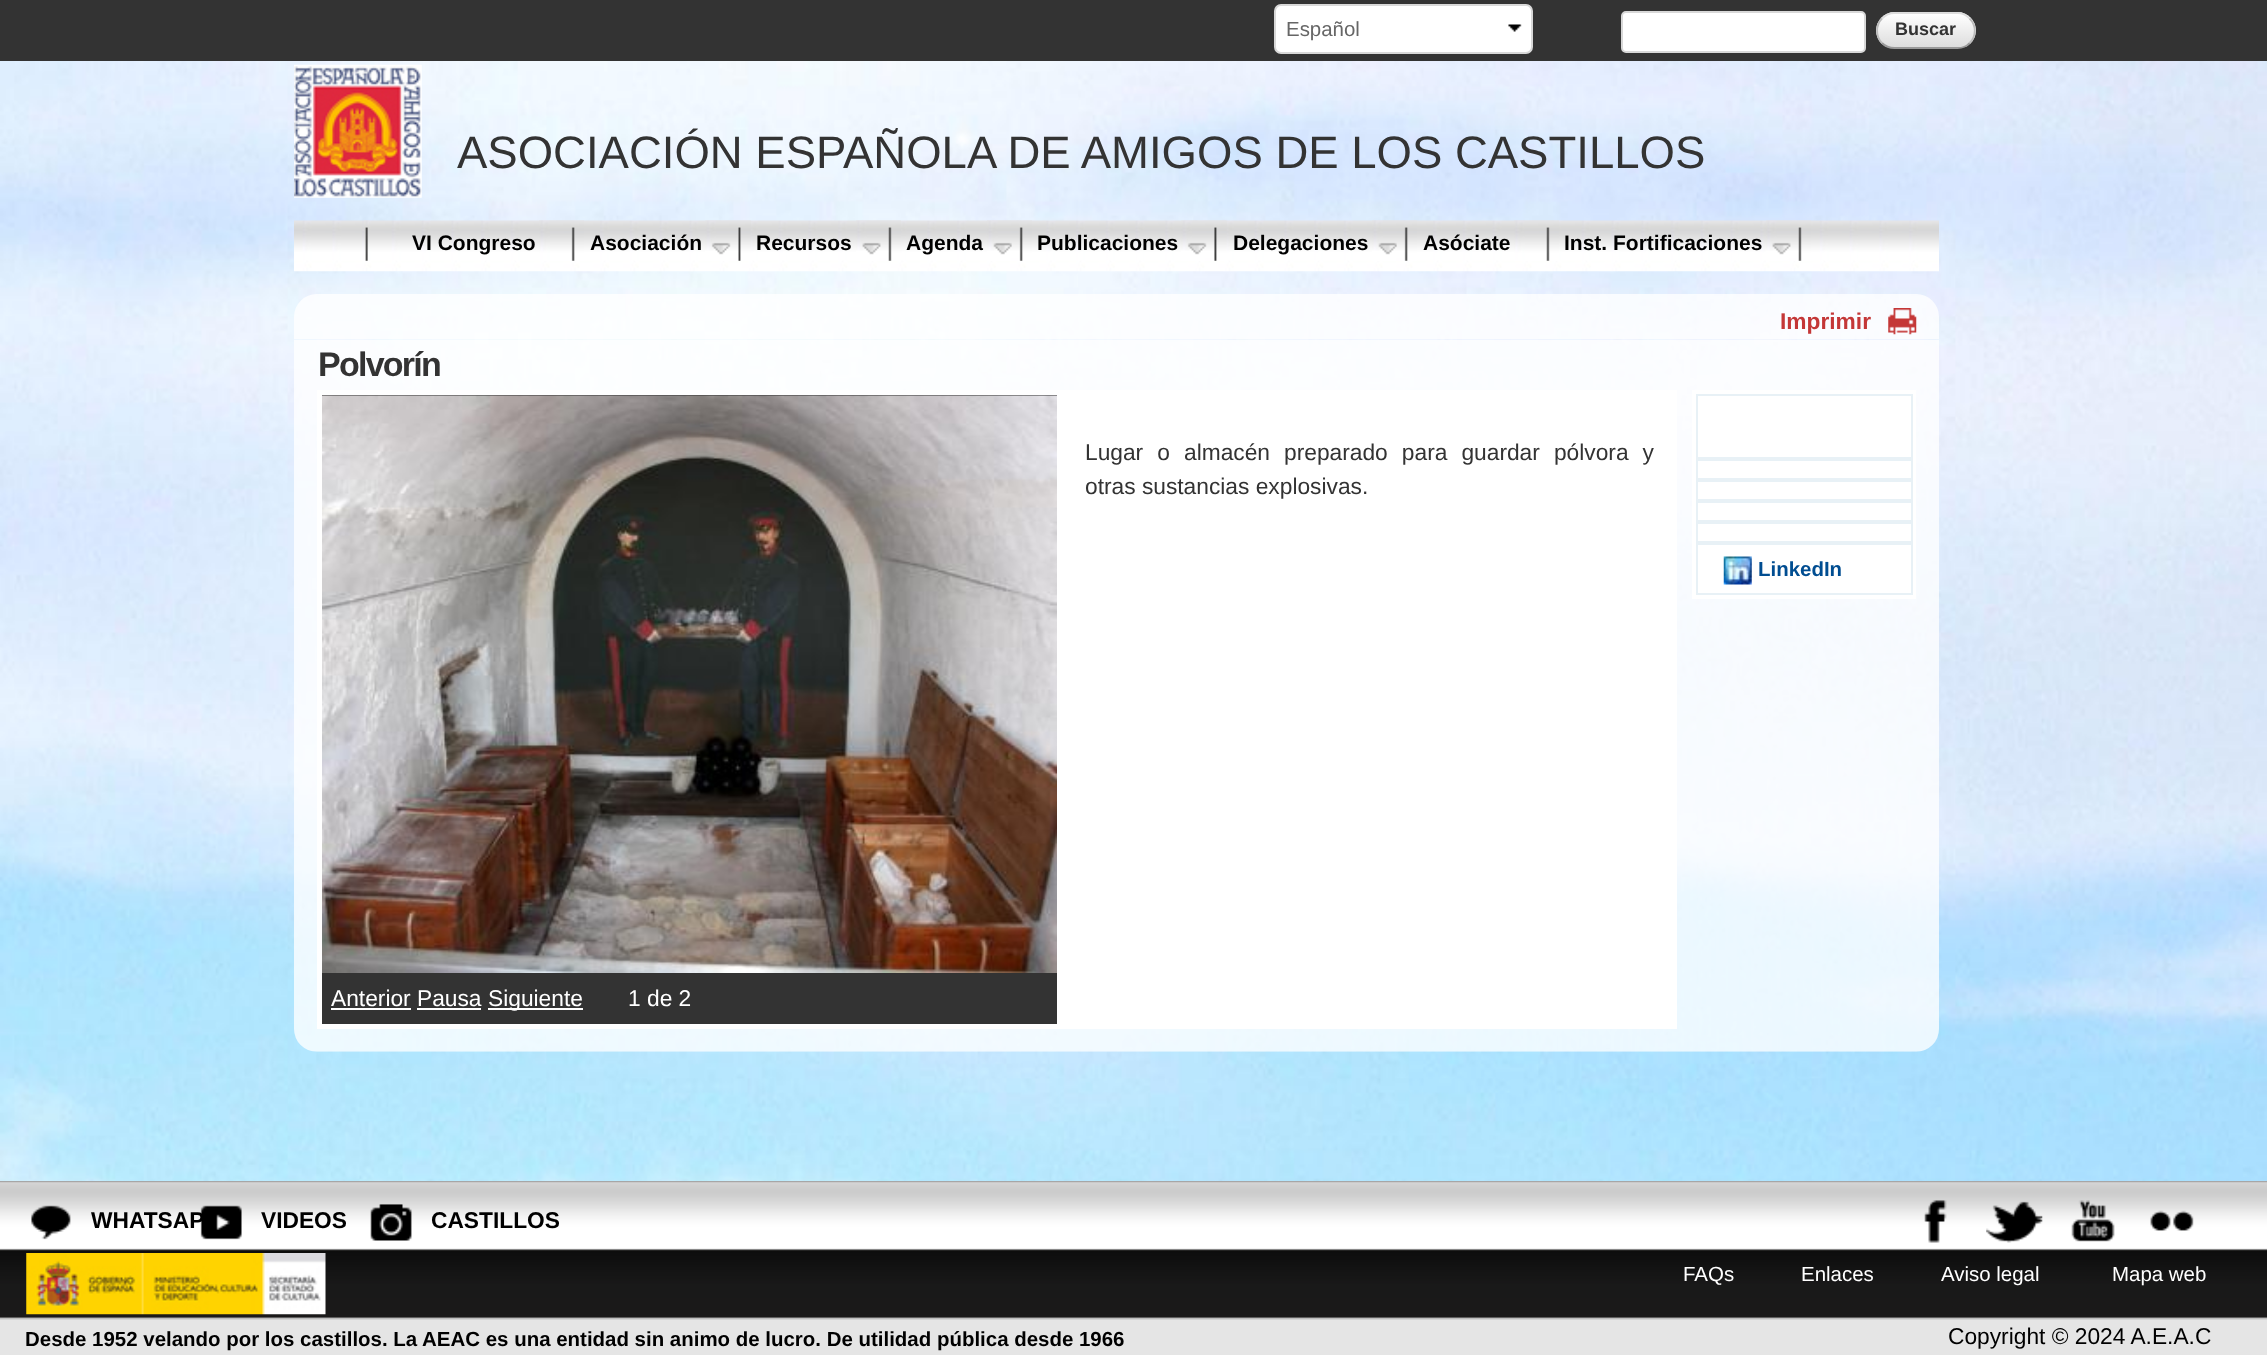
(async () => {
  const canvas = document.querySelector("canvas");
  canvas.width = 2267;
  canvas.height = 1355;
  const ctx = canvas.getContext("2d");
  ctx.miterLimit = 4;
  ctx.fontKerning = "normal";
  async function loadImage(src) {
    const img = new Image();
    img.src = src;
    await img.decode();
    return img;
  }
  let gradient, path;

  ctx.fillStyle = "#ffffff";
  ctx.fillRect(0, 0, 2267, 1355);
  ctx.fillStyle = "#333333";
  ctx.fillRect(0, 0, 2267, 61);
  ctx.fillStyle = "#ffffff";
  ctx.beginPath();
  ctx.roundRect(1276, 5, 255, 48, 4);
  ctx.fill();
  ctx.drawImage(await loadImage("img/1.png"), 1508, 24, 14, 8);
  ctx.beginPath();
  ctx.roundRect(1275, 5, 257, 48, 6);
  ctx.strokeStyle = "#d8d8d8";
  ctx.lineWidth = 2;
  ctx.stroke();
  ctx.beginPath();
  ctx.roundRect(1622, 12, 243, 40, 4);
  ctx.fill();
  ctx.stroke();
  ctx.save();
  ctx.beginPath();
  ctx.roundRect(1876, 12, 100, 37, 18.5);
  ctx.clip();
  gradient = ctx.createLinearGradient(1878, -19, 1878, 14);
  gradient.addColorStop(0, "#ffffff");
  gradient.addColorStop(1, "#dddddd");
  ctx.fillStyle = gradient;
  ctx.fillRect(1886, 12, 80, 2);
  gradient = ctx.createLinearGradient(1878, 14, 1878, 47);
  gradient.addColorStop(0, "#ffffff");
  gradient.addColorStop(1, "#dddddd");
  ctx.fillStyle = gradient;
  ctx.fillRect(1876, 14, 100, 33);
  ctx.restore();
  path = new Path2D("M1882 18.5C1885.5 15 1889.5 13 1894.5 13H1957.5C1962 13 1966.5 15 1969.5 18.5");
  ctx.strokeStyle = "#dddddd";
  ctx.lineWidth = 1.8;
  ctx.stroke(path);
  path = new Path2D("M1969.5 18.5C1976.5 25 1976.5 36.5 1969.5 43");
  ctx.strokeStyle = "#bbbbbb";
  ctx.stroke(path);
  path = new Path2D("M1969.5 43C1966.5 46.5 1962 48 1957.5 48H1894.5C1889.5 48 1885.5 46.5 1882 43");
  ctx.strokeStyle = "#999999";
  ctx.stroke(path);
  path = new Path2D("M1882 43C1875.5 36.5 1875.5 25 1882 18.5");
  ctx.strokeStyle = "#bbbbbb";
  ctx.stroke(path);
  ctx.drawImage(await loadImage("img/27.png"), 0, 61, 2267, 1120);
  ctx.drawImage(await loadImage("img/2.png"), 294, 64, 128, 134);
  ctx.drawImage(await loadImage("img/3.png"), 294, 220, 1645, 52);
  ctx.drawImage(await loadImage("img/4.png"), 364, 220, 5, 41);
  ctx.drawImage(await loadImage("img/5.png"), 539, 220, 45, 41);
  ctx.drawImage(await loadImage("img/6.png"), 705, 220, 46, 41);
  ctx.drawImage(await loadImage("img/7.png"), 856, 220, 45, 41);
  ctx.drawImage(await loadImage("img/8.png"), 987, 220, 45, 41);
  ctx.drawImage(await loadImage("img/9.png"), 1181, 220, 46, 41);
  ctx.drawImage(await loadImage("img/10.png"), 1372, 220, 45, 41);
  ctx.drawImage(await loadImage("img/11.png"), 1514, 220, 45, 41);
  ctx.drawImage(await loadImage("img/12.png"), 1766, 220, 45, 41);
  ctx.drawImage(await loadImage("img/13.png"), 294, 294, 1645, 46);
  ctx.drawImage(await loadImage("img/14.png"), 1888, 308, 29, 27);
  ctx.drawImage(await loadImage("img/15.png"), 294, 340, 1645, 712);
  ctx.fillRect(1062, 390, 615, 639);
  ctx.fillStyle = "#333333";
  ctx.beginPath();
  ctx.rect(319.5, 392.5, 740, 634);
  ctx.fill();
  ctx.strokeStyle = "#ffffff";
  ctx.lineWidth = 5;
  ctx.stroke();
  ctx.drawImage(await loadImage("img/16.png"), 322, 395, 735, 578);
  for (const [x, y, w, h, color] of [
    [331, 1008, 80, 2, "#ffffff"],
    [488, 1008, 95, 2, "#ffffff"],
    [417, 1008, 64, 2, "#ffffff"],
    [1692, 390, 224, 209, "#ffffff"],
  ]) {
    ctx.fillStyle = color;
    ctx.fillRect(x, y, w, h);
  }
  ctx.strokeStyle = "#e8f1f6";
  ctx.lineWidth = 2;
  ctx.strokeRect(1697, 395, 215, 63);
  ctx.strokeRect(1697, 460, 215, 19);
  ctx.strokeRect(1697, 481, 215, 19);
  ctx.strokeRect(1697, 502, 215, 19);
  ctx.strokeRect(1697, 523, 215, 19);
  ctx.strokeRect(1697, 544, 215, 50);
  ctx.drawImage(await loadImage("img/17.png"), 1723, 556, 29, 29);
  ctx.drawImage(await loadImage("img/18.png"), 0, 1181, 2267, 139);
  ctx.drawImage(await loadImage("img/19.png"), 31, 1205, 40, 35);
  ctx.drawImage(await loadImage("img/21.png"), 370, 1204, 42, 37);
  ctx.drawImage(await loadImage("img/22.png"), 1924, 1200, 23, 43);
  ctx.drawImage(await loadImage("img/23.png"), 1986, 1201, 57, 42);
  ctx.drawImage(await loadImage("img/24.png"), 2071, 1200, 44, 42);
  ctx.drawImage(await loadImage("img/25.png"), 2150, 1210, 44, 21);
  ctx.drawImage(await loadImage("img/26.png"), 26, 1253, 300, 62);
  ctx.fillStyle = "#e5e5e5";
  ctx.fillRect(0, 1320, 2267, 35);
  ctx.font = "20.47px Liberation Sans";
  ctx.fillStyle = "#666666";
  ctx.fillText("Español", 1286, 36);
  ctx.font = "bold 18px Liberation Sans";
  ctx.fillStyle = "#333333";
  ctx.fillText("Buscar", 1895, 35);
  ctx.font = "45.5px Liberation Sans";
  ctx.fillText("ASOCIACIÓN ESPAÑOLA DE AMIGOS DE LOS CASTILLOS", 457, 168);
  ctx.font = "bold 21px Liberation Sans";
  ctx.fillStyle = "#000000";
  for (const [text, x, y] of [
    ["VI Congreso", 412, 250],
    ["Asociación", 590, 250],
    ["Recursos", 756, 250],
    ["Agenda", 906, 250],
    ["Publicaciones", 1037, 250],
    ["Delegaciones", 1233, 250],
    ["Asóciate", 1423, 250],
    ["Inst. Fortificaciones", 1564, 250],
  ]) {
    ctx.fillText(text, x, y);
  }
  ctx.font = "bold 22.75px Liberation Sans";
  ctx.fillStyle = "#c43737";
  ctx.fillText("Imprimir", 1780, 329);
  ctx.letterSpacing = "-1.75px";
  ctx.font = "bold 34px Liberation Sans";
  ctx.fillStyle = "#333333";
  ctx.fillText("Polvorín", 318, 376);
  ctx.letterSpacing = "0px";
  ctx.wordSpacing = "7.75px";
  ctx.font = "22.75px Liberation Sans";
  ctx.fillText("Lugar o almacén preparado para guardar pólvora y", 1085, 460);
  ctx.wordSpacing = "0px";
  ctx.fillText("otras sustancias explosivas.", 1085, 494);
  ctx.fillStyle = "#ffffff";
  for (const [text, x, y] of [
    ["Anterior Pausa", 331, 1006],
    ["Siguiente", 488, 1006],
    ["1 de 2", 628, 1006],
  ]) {
    ctx.fillText(text, x, y);
  }
  ctx.font = "bold 20.47px Liberation Sans";
  ctx.fillStyle = "#004d91";
  ctx.fillText("LinkedIn", 1758, 576);
  ctx.font = "bold 22.75px Liberation Sans";
  ctx.fillStyle = "#000000";
  ctx.fillText("WHATSAP", 91, 1228);
  ctx.drawImage(await loadImage("img/20.png"), 200, 1205, 42, 35);
  ctx.fillText("VIDEOS", 261, 1228);
  ctx.fillText("CASTILLOS", 431, 1228);
  ctx.font = "20.47px Liberation Sans";
  ctx.fillStyle = "#ffffff";
  for (const [text, x, y] of [
    ["FAQs", 1683, 1281],
    ["Enlaces", 1801, 1281],
    ["Aviso legal", 1941, 1281],
    ["Mapa web", 2112, 1281],
  ]) {
    ctx.fillText(text, x, y);
  }
  ctx.font = "bold 20.47px Liberation Sans";
  ctx.fillStyle = "#000000";
  ctx.fillText("Desde 1952 velando por los castillos. La AEAC es una entidad sin animo de lucro. De utilidad pública desde 1966", 25, 1346);
  ctx.font = "22.75px Liberation Sans";
  ctx.fillText("Copyright © 2024 A.E.A.C", 1948, 1344);
})();
